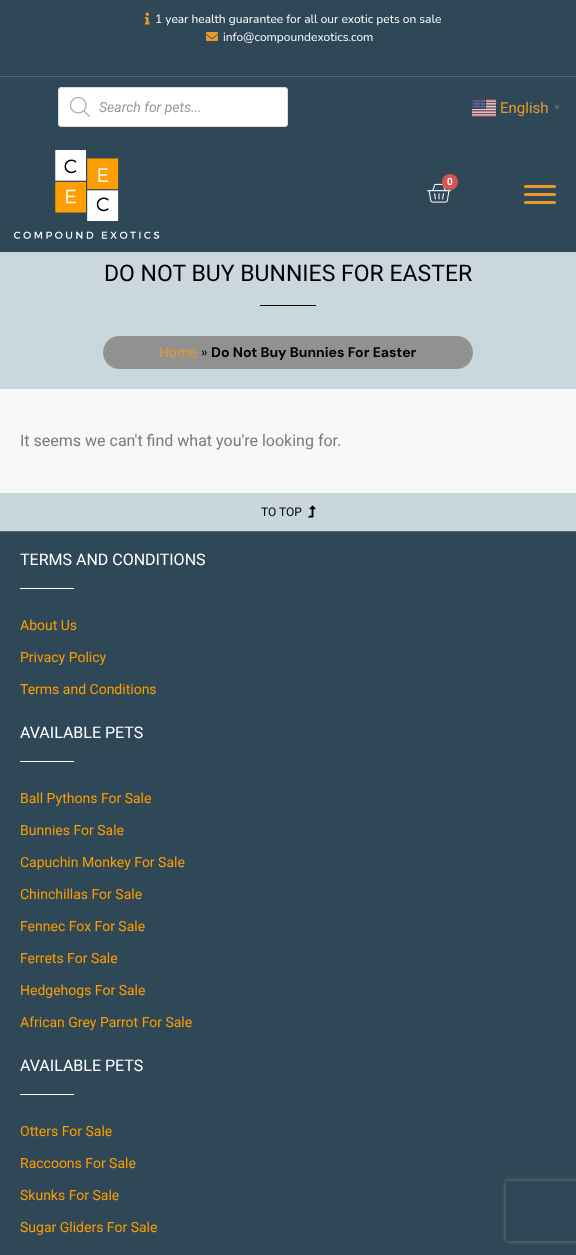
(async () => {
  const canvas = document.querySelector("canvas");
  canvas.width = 576;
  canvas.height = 1255;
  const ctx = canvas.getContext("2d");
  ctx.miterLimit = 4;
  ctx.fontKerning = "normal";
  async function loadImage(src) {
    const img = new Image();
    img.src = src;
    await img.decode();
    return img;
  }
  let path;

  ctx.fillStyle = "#2f4858";
  ctx.fillRect(0, 0, 576, 1255);
  ctx.fillStyle = "#516a7b";
  ctx.fillRect(0, 76, 576, 1);
  ctx.drawImage(await loadImage("img/1.png"), 145, 12, 5, 13);
  ctx.drawImage(await loadImage("img/2.png"), 206, 32, 12, 9);
  ctx.fillStyle = "#ffffff";
  ctx.beginPath();
  ctx.roundRect(58.5, 87.5, 229, 39, 2.5);
  ctx.fill();
  ctx.strokeStyle = "#dddddd";
  ctx.stroke();
  ctx.drawImage(await loadImage("img/3.png"), 70, 97, 20, 20);
  ctx.drawImage(await loadImage("img/4.png"), 472, 99, 24, 18);
  ctx.drawImage(await loadImage("img/5.png"), 13, 150, 147, 89);
  ctx.drawImage(await loadImage("img/6.png"), 427, 183, 24, 20);
  ctx.fillStyle = "#d9534f";
  ctx.beginPath();
  ctx.arc(450, 182, 8, 0, Math.PI * 2);
  ctx.fill();
  ctx.fillStyle = "#eb9928";
  ctx.beginPath();
  ctx.roundRect(524, 185, 32, 3, 1.5);
  ctx.fill();
  ctx.beginPath();
  ctx.roundRect(524, 193, 32, 3, 1.5);
  ctx.fill();
  ctx.beginPath();
  ctx.roundRect(524, 201, 32, 3, 1.5);
  ctx.fill();
  ctx.fillStyle = "#cad8dd";
  ctx.fillRect(0, 252, 576, 137);
  ctx.fillStyle = "#000000";
  ctx.fillRect(260, 305, 56, 1);
  ctx.fillStyle = "#919191";
  ctx.beginPath();
  ctx.roundRect(103, 336, 370, 33, 16.5);
  ctx.fill();
  ctx.fillStyle = "#f8f8f8";
  ctx.fillRect(0, 389, 576, 104);
  ctx.fillStyle = "#c9d7dc";
  ctx.fillRect(0, 493, 576, 38);
  ctx.drawImage(await loadImage("img/7.png"), 308, 505, 8, 13);
  for (const [x, y, w, h, color] of [
    [0, 531, 576, 1, "#516a7b"],
    [20, 588, 54, 1, "#ffffff"],
    [20, 761, 54, 1, "#ffffff"],
    [20, 1094, 54, 1, "#ffffff"],
  ]) {
    ctx.fillStyle = color;
    ctx.fillRect(x, y, w, h);
  }
  ctx.save();
  path = new Path2D("M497 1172H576V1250H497ZM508 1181H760C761 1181 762 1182 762 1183V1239C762 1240 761 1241 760 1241H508C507 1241 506 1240 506 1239V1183C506 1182 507 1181 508 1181Z");
  ctx.clip(path, "evenodd");
  ctx.fillStyle = "#808080";
  ctx.filter = "blur(2.5px)";
  ctx.beginPath();
  ctx.roundRect(506, 1181, 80, 60, 2);
  ctx.fill();
  ctx.filter = "none";
  ctx.restore();
  ctx.font = "12px Nunito";
  ctx.fillText("1 year health guarantee for all our exotic pets on sale", 155, 23);
  ctx.fillText("info@compoundexotics.com", 223, 41);
  ctx.font = "italic 14px Roboto";
  ctx.fillStyle = "#999999";
  ctx.fillText("Search for pets...", 99, 112);
  ctx.font = "15px Roboto";
  ctx.fillStyle = "#eb9928";
  ctx.fillText("English", 500, 113);
  ctx.font = "bold 8px Liberation Sans";
  ctx.fillStyle = "#666666";
  ctx.fillText("▼", 553, 110);
  ctx.font = "600 10px Roboto";
  ctx.fillStyle = "#ffffff";
  ctx.fillText("0", 447, 185);
  ctx.font = "23px Roboto";
  ctx.fillStyle = "#000000";
  ctx.fillText("DO NOT BUY BUNNIES FOR EASTER", 104, 281);
  ctx.font = "14px DM Sans";
  ctx.fillStyle = "#eb9928";
  ctx.fillText("Home", 159, 357);
  ctx.fillStyle = "#000000";
  ctx.fillText("»", 201, 357);
  ctx.font = "bold 14px DM Sans";
  ctx.fillText("Do Not Buy Bunnies For Easter", 211, 357);
  ctx.font = "16px Roboto";
  ctx.fillStyle = "#7a7a7a";
  ctx.fillText("It seems we can't find what you're looking for.", 20, 446);
  ctx.font = "12px Roboto";
  ctx.fillStyle = "#000000";
  ctx.fillText("TO TOP", 261, 516);
  ctx.font = "16px Roboto";
  ctx.fillStyle = "#ffffff";
  ctx.fillText("TERMS AND CONDITIONS", 20, 565);
  ctx.font = "14px Roboto";
  ctx.fillStyle = "#ff9c00";
  for (const [text, x, y] of [
    ["About Us", 20, 630],
    ["Privacy Policy", 20, 662],
    ["Terms and Conditions", 20, 694],
  ]) {
    ctx.fillText(text, x, y);
  }
  ctx.font = "16px Roboto";
  ctx.fillStyle = "#ffffff";
  ctx.fillText("AVAILABLE PETS", 20, 738);
  ctx.font = "14px Roboto";
  ctx.fillStyle = "#ff9c00";
  for (const [text, x, y] of [
    ["Ball Pythons For Sale", 20, 803],
    ["Bunnies For Sale", 20, 835],
    ["Capuchin Monkey For Sale", 20, 867],
    ["Chinchillas For Sale", 20, 899],
    ["Fennec Fox For Sale", 20, 931],
    ["Ferrets For Sale", 20, 963],
    ["Hedgehogs For Sale", 20, 995],
    ["African Grey Parrot For Sale", 20, 1027],
  ]) {
    ctx.fillText(text, x, y);
  }
  ctx.font = "16px Roboto";
  ctx.fillStyle = "#ffffff";
  ctx.fillText("AVAILABLE PETS", 20, 1071);
  ctx.font = "14px Roboto";
  ctx.fillStyle = "#ff9c00";
  for (const [text, x, y] of [
    ["Otters For Sale", 20, 1136],
    ["Raccoons For Sale", 20, 1168],
    ["Skunks For Sale", 20, 1200],
    ["Sugar Gliders For Sale", 20, 1232],
  ]) {
    ctx.fillText(text, x, y);
  }
})();
